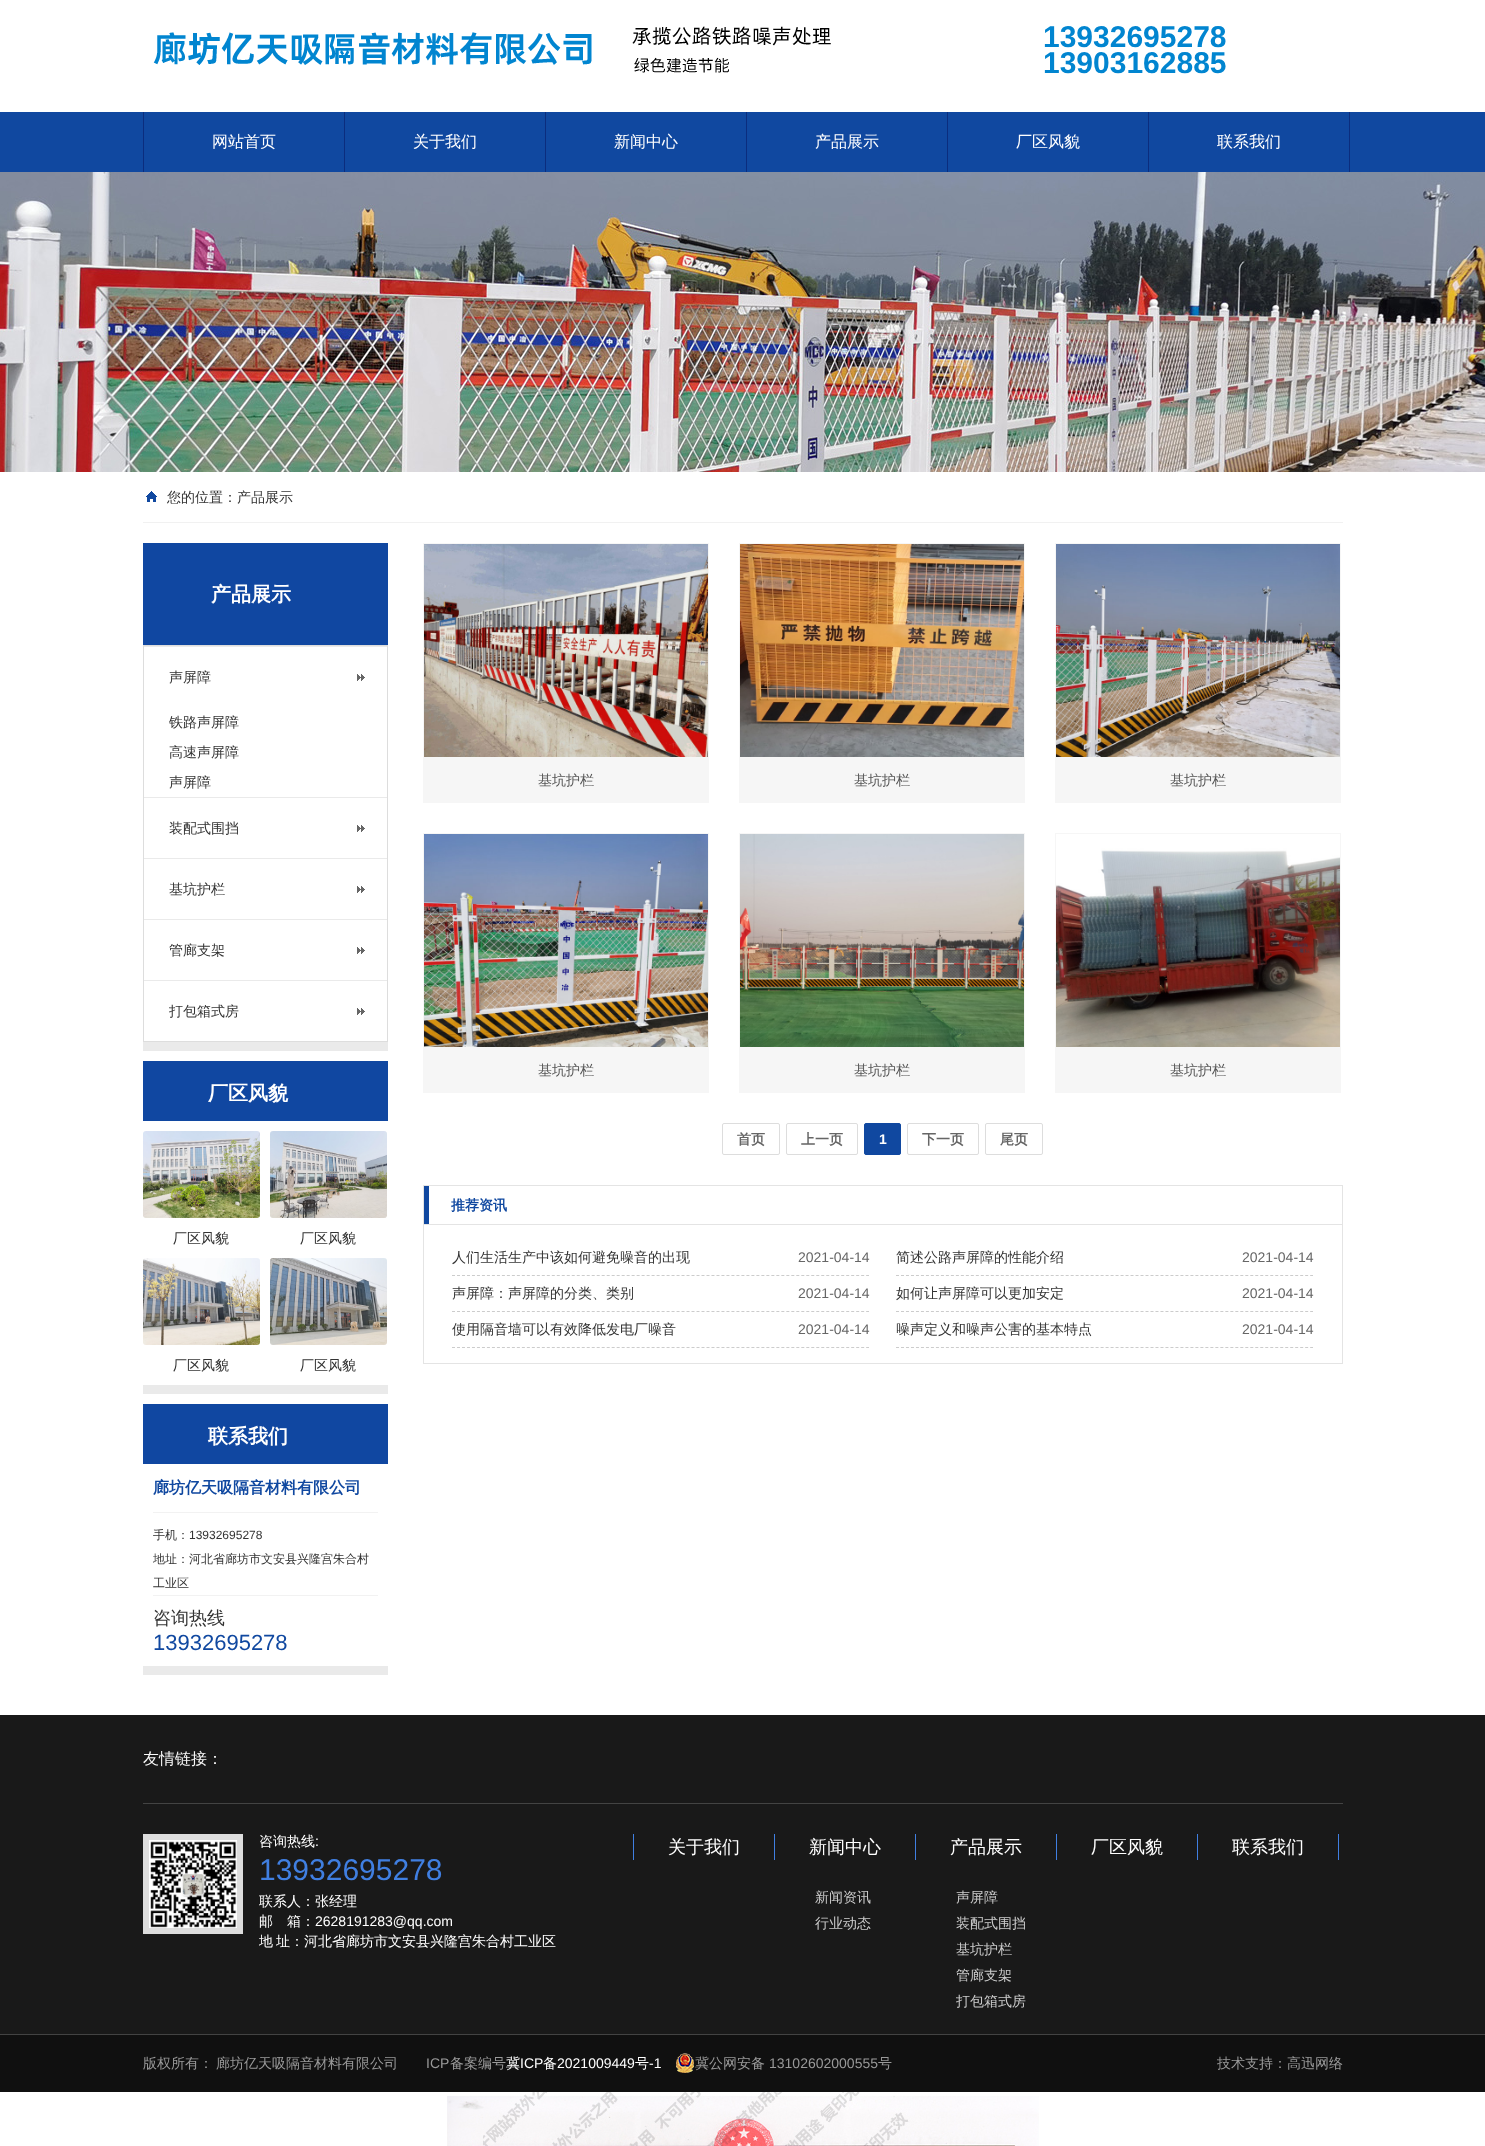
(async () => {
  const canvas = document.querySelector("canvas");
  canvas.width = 1485;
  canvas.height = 2146;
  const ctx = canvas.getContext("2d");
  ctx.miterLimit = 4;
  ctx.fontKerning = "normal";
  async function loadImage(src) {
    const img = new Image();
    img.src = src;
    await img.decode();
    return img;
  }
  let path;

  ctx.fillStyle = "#ffffff";
  ctx.fillRect(0, 0, 1485, 2146);
  ctx.drawImage(await loadImage("img/1.png"), 153, 26, 678, 47);
  for (const [x, y, w, h, color] of [
    [0, 112, 1485, 60, "#1048a0"],
    [344, 112, 1, 60, "#0b2d7e"],
    [143, 112, 1, 60, "#0b2d7e"],
    [545, 112, 1, 60, "#0b2d7e"],
    [746, 112, 1, 60, "#0b2d7e"],
    [947, 112, 1, 60, "#0b2d7e"],
    [1148, 112, 1, 60, "#0b2d7e"],
    [1349, 112, 1, 60, "#0b2d7e"],
  ]) {
    ctx.fillStyle = color;
    ctx.fillRect(x, y, w, h);
  }
  ctx.drawImage(await loadImage("img/2.png"), 0, 172, 1485, 300);
  ctx.fillStyle = "#f1f1f1";
  ctx.fillRect(143, 522, 1200, 1);
  ctx.drawImage(await loadImage("img/3.png"), 146, 491, 11, 11);
  ctx.fillStyle = "#eaeaea";
  ctx.fillRect(143, 1042, 245, 9);
  ctx.fillStyle = "#1047a1";
  ctx.fillRect(143, 543, 245, 102);
  ctx.strokeStyle = "#dddddd";
  ctx.strokeRect(143.5, 645.5, 244, 396);
  ctx.drawImage(await loadImage("img/4.png"), 357, 674, 8, 7);
  ctx.fillStyle = "#eaeaea";
  ctx.fillRect(144, 646, 243, 1);
  ctx.drawImage(await loadImage("img/4.png"), 357, 825, 8, 7);
  ctx.fillRect(144, 797, 243, 1);
  ctx.drawImage(await loadImage("img/4.png"), 357, 886, 8, 7);
  ctx.fillRect(144, 858, 243, 1);
  ctx.drawImage(await loadImage("img/4.png"), 357, 947, 8, 7);
  ctx.fillRect(144, 919, 243, 1);
  ctx.drawImage(await loadImage("img/4.png"), 357, 1008, 8, 7);
  for (const [x, y, w, h, color] of [
    [144, 980, 243, 1, "#eaeaea"],
    [143, 1385, 245, 9, "#eaeaea"],
    [143, 1061, 245, 60, "#1047a1"],
  ]) {
    ctx.fillStyle = color;
    ctx.fillRect(x, y, w, h);
  }
  ctx.drawImage(await loadImage("img/5.png"), 143, 1131, 117, 87);
  ctx.drawImage(await loadImage("img/6.png"), 270, 1131, 117, 87);
  ctx.drawImage(await loadImage("img/7.png"), 143, 1258, 117, 87);
  ctx.drawImage(await loadImage("img/8.png"), 270, 1258, 117, 87);
  for (const [x, y, w, h, color] of [
    [143, 1666, 245, 9, "#eaeaea"],
    [143, 1404, 245, 60, "#1047a1"],
    [153, 1512, 225, 1, "#f2f2f2"],
    [153, 1595, 225, 1, "#f2f2f2"],
    [423, 543, 286, 260, "#f6f6f6"],
  ]) {
    ctx.fillStyle = color;
    ctx.fillRect(x, y, w, h);
  }
  ctx.drawImage(await loadImage("img/9.png"), 424, 544, 284, 213);
  ctx.fillRect(739, 543, 286, 260);
  ctx.drawImage(await loadImage("img/10.png"), 740, 544, 284, 213);
  ctx.fillRect(1055, 543, 286, 260);
  ctx.drawImage(await loadImage("img/11.png"), 1056, 544, 284, 213);
  ctx.fillRect(423, 833, 286, 260);
  ctx.drawImage(await loadImage("img/12.png"), 424, 834, 284, 213);
  ctx.fillRect(739, 833, 286, 260);
  ctx.drawImage(await loadImage("img/13.png"), 740, 834, 284, 213);
  ctx.fillRect(1055, 833, 286, 260);
  ctx.drawImage(await loadImage("img/14.png"), 1056, 834, 284, 213);
  ctx.beginPath();
  ctx.roundRect(722.5, 1123.5, 57, 31, 1.5);
  ctx.stroke();
  ctx.beginPath();
  ctx.roundRect(786.5, 1123.5, 71, 31, 1.5);
  ctx.stroke();
  ctx.fillStyle = "#1048a0";
  ctx.beginPath();
  ctx.roundRect(864.5, 1123.5, 36, 31, 1.5);
  ctx.fill();
  ctx.strokeStyle = "#1048a0";
  ctx.stroke();
  ctx.beginPath();
  ctx.roundRect(907.5, 1123.5, 71, 31, 1.5);
  ctx.strokeStyle = "#dddddd";
  ctx.stroke();
  ctx.beginPath();
  ctx.roundRect(985.5, 1123.5, 57, 31, 1.5);
  ctx.stroke();
  ctx.strokeStyle = "#e4e4e4";
  ctx.strokeRect(423.5, 1185.5, 919, 39);
  for (const [x, y, w, h, color] of [
    [424, 1186, 5, 38, "#1048a0"],
    [1342, 1225, 1, 139, "#e4e4e4"],
    [423, 1363, 920, 1, "#e4e4e4"],
    [423, 1225, 1, 139, "#e4e4e4"],
  ]) {
    ctx.fillStyle = color;
    ctx.fillRect(x, y, w, h);
  }
  path = new Path2D("M452 1275.5H869");
  ctx.strokeStyle = "#cccccc";
  ctx.setLineDash([3, 1.99]);
  ctx.stroke(path);
  path = new Path2D("M896 1275.5H1313");
  ctx.stroke(path);
  path = new Path2D("M452 1311.5H869");
  ctx.stroke(path);
  path = new Path2D("M896 1311.5H1313");
  ctx.stroke(path);
  path = new Path2D("M452 1347.5H869");
  ctx.stroke(path);
  path = new Path2D("M896 1347.5H1313");
  ctx.stroke(path);
  for (const [x, y, w, h, color] of [
    [0, 1715, 1485, 319, "#191919"],
    [143, 1803, 1200, 1, "#434343"],
    [143, 1834, 100, 100, "#dddddd"],
  ]) {
    ctx.fillStyle = color;
    ctx.fillRect(x, y, w, h);
  }
  ctx.drawImage(await loadImage("img/15.png"), 149, 1840, 88, 88);
  for (const [x, y, w, h, color] of [
    [774, 1834, 1, 26, "#407fe1"],
    [633, 1834, 1, 26, "#407fe1"],
    [915, 1834, 1, 26, "#407fe1"],
    [1056, 1834, 1, 26, "#407fe1"],
    [1197, 1834, 1, 26, "#407fe1"],
    [1338, 1834, 1, 26, "#407fe1"],
    [0, 2035, 1485, 57, "#101010"],
    [0, 2034, 1485, 1, "#434343"],
  ]) {
    ctx.fillStyle = color;
    ctx.fillRect(x, y, w, h);
  }
  ctx.drawImage(await loadImage("img/16.png"), 676, 2053, 18, 20);
  ctx.drawImage(await loadImage("img/17.png"), 447, 2092, 592, 54);
  ctx.font = "bold 30px Liberation Sans";
  ctx.fillStyle = "#0185d0";
  ctx.fillText("13932695278", 1043, 47);
  ctx.fillText("13903162885", 1043, 73);
  ctx.font = "500 16px WenQuanYi Zen Hei";
  ctx.fillStyle = "#ffffff";
  for (const [text, x, y] of [
    ["网站首页", 212, 147],
    ["关于我们", 413, 147],
    ["新闻中心", 614, 147],
    ["产品展示", 815, 147],
    ["厂区风貌", 1016, 147],
    ["联系我们", 1217, 147],
  ]) {
    ctx.fillText(text, x, y);
  }
  ctx.font = "500 14px WenQuanYi Zen Hei";
  ctx.fillStyle = "#333333";
  ctx.fillText("您的位置：产品展示", 167, 502);
  ctx.font = "bold 20px WenQuanYi Zen Hei";
  ctx.fillStyle = "#ffffff";
  ctx.fillText("产品展示", 211, 601);
  ctx.font = "500 14px WenQuanYi Zen Hei";
  ctx.fillStyle = "#333333";
  for (const [text, x, y] of [
    ["声屏障", 169, 682],
    ["铁路声屏障", 169, 727],
    ["高速声屏障", 169, 757],
    ["声屏障", 169, 787],
    ["装配式围挡", 169, 833],
    ["基坑护栏", 169, 894],
    ["管廊支架", 169, 955],
    ["打包箱式房", 169, 1016],
  ]) {
    ctx.fillText(text, x, y);
  }
  ctx.font = "bold 20px WenQuanYi Zen Hei";
  ctx.fillStyle = "#ffffff";
  ctx.fillText("厂区风貌", 208, 1100);
  ctx.font = "500 14px WenQuanYi Zen Hei";
  ctx.fillStyle = "#333333";
  for (const [text, x, y] of [
    ["厂区风貌", 173, 1243],
    ["厂区风貌", 300, 1243],
    ["厂区风貌", 173, 1370],
    ["厂区风貌", 300, 1370],
  ]) {
    ctx.fillText(text, x, y);
  }
  ctx.font = "bold 20px WenQuanYi Zen Hei";
  ctx.fillStyle = "#ffffff";
  ctx.fillText("联系我们", 208, 1443);
  ctx.font = "bold 16px WenQuanYi Zen Hei";
  ctx.fillStyle = "#1048a0";
  ctx.fillText("廊坊亿天吸隔音材料有限公司", 153, 1493);
  ctx.font = "500 12px WenQuanYi Zen Hei";
  ctx.fillStyle = "#333333";
  ctx.fillText("手机：", 153, 1539);
  ctx.font = "12px Liberation Sans";
  ctx.fillText("13932695278", 189, 1539);
  ctx.font = "500 12px WenQuanYi Zen Hei";
  ctx.fillText("地址：河北省廊坊市文安县兴隆宫朱合村", 153, 1563);
  ctx.fillText("工业区", 153, 1587);
  ctx.font = "500 18px WenQuanYi Zen Hei";
  ctx.fillText("咨询热线", 153, 1624);
  ctx.font = "22px Liberation Sans";
  ctx.fillStyle = "#1048a0";
  ctx.fillText("13932695278", 153, 1650);
  ctx.font = "500 14px WenQuanYi Zen Hei";
  ctx.fillStyle = "#555555";
  for (const [text, x, y] of [
    ["基坑护栏", 538, 785],
    ["基坑护栏", 854, 785],
    ["基坑护栏", 1170, 785],
    ["基坑护栏", 538, 1075],
    ["基坑护栏", 854, 1075],
    ["基坑护栏", 1170, 1075],
  ]) {
    ctx.fillText(text, x, y);
  }
  ctx.font = "bold 14px WenQuanYi Zen Hei";
  ctx.fillStyle = "#666666";
  ctx.fillText("首页", 737, 1144);
  ctx.fillText("上一页", 801, 1144);
  ctx.font = "bold 14px Liberation Sans";
  ctx.fillStyle = "#ffffff";
  ctx.fillText("1", 879, 1144);
  ctx.font = "bold 14px WenQuanYi Zen Hei";
  ctx.fillStyle = "#666666";
  ctx.fillText("下一页", 922, 1144);
  ctx.fillText("尾页", 1000, 1144);
  ctx.fillStyle = "#1048a0";
  ctx.fillText("推荐资讯", 451, 1210);
  ctx.font = "500 14px WenQuanYi Zen Hei";
  ctx.fillStyle = "#333333";
  ctx.fillText("人们生活生产中该如何避免噪音的出现", 452, 1262);
  ctx.font = "14px Liberation Sans";
  ctx.fillStyle = "#666666";
  ctx.fillText("2021-04-14", 798, 1262);
  ctx.font = "500 14px WenQuanYi Zen Hei";
  ctx.fillStyle = "#333333";
  ctx.fillText("简述公路声屏障的性能介绍", 896, 1262);
  ctx.font = "14px Liberation Sans";
  ctx.fillStyle = "#666666";
  ctx.fillText("2021-04-14", 1242, 1262);
  ctx.font = "500 14px WenQuanYi Zen Hei";
  ctx.fillStyle = "#333333";
  ctx.fillText("声屏障：声屏障的分类、类别", 452, 1298);
  ctx.font = "14px Liberation Sans";
  ctx.fillStyle = "#666666";
  ctx.fillText("2021-04-14", 798, 1298);
  ctx.font = "500 14px WenQuanYi Zen Hei";
  ctx.fillStyle = "#333333";
  ctx.fillText("如何让声屏障可以更加安定", 896, 1298);
  ctx.font = "14px Liberation Sans";
  ctx.fillStyle = "#666666";
  ctx.fillText("2021-04-14", 1242, 1298);
  ctx.font = "500 14px WenQuanYi Zen Hei";
  ctx.fillStyle = "#333333";
  ctx.fillText("使用隔音墙可以有效降低发电厂噪音", 452, 1334);
  ctx.font = "14px Liberation Sans";
  ctx.fillStyle = "#666666";
  ctx.fillText("2021-04-14", 798, 1334);
  ctx.font = "500 14px WenQuanYi Zen Hei";
  ctx.fillStyle = "#333333";
  ctx.fillText("噪声定义和噪声公害的基本特点", 896, 1334);
  ctx.font = "14px Liberation Sans";
  ctx.fillStyle = "#666666";
  ctx.fillText("2021-04-14", 1242, 1334);
  ctx.font = "500 16px WenQuanYi Zen Hei";
  ctx.fillStyle = "#f9f9f9";
  ctx.fillText("友情链接：", 143, 1764);
  ctx.font = "500 14px WenQuanYi Zen Hei";
  ctx.fillStyle = "#ffffff";
  ctx.fillText("咨询热线", 259, 1846);
  ctx.font = "14px Liberation Sans";
  ctx.fillText(":", 315, 1846);
  ctx.font = "30px Liberation Sans";
  ctx.fillStyle = "#407fe1";
  ctx.fillText("13932695278", 259, 1880);
  ctx.font = "500 14px WenQuanYi Zen Hei";
  ctx.fillStyle = "#ffffff";
  ctx.fillText("联系人：张经理", 259, 1906);
  ctx.fillText("邮　箱：", 259, 1926);
  ctx.font = "14px Liberation Sans";
  ctx.fillText("2628191283@qq.com", 315, 1926);
  ctx.font = "500 14px WenQuanYi Zen Hei";
  ctx.fillText("地", 259, 1946);
  ctx.fillText("址：河北省廊坊市文安县兴隆宫朱合村工业区", 276, 1946);
  ctx.font = "500 18px WenQuanYi Zen Hei";
  ctx.fillText("关于我们", 668, 1853);
  ctx.fillText("新闻中心", 809, 1853);
  ctx.font = "500 14px WenQuanYi Zen Hei";
  ctx.fillStyle = "#cccccc";
  ctx.fillText("新闻资讯", 815, 1902);
  ctx.fillText("行业动态", 815, 1928);
  ctx.font = "500 18px WenQuanYi Zen Hei";
  ctx.fillStyle = "#ffffff";
  ctx.fillText("产品展示", 950, 1853);
  ctx.font = "500 14px WenQuanYi Zen Hei";
  ctx.fillStyle = "#cccccc";
  for (const [text, x, y] of [
    ["声屏障", 956, 1902],
    ["装配式围挡", 956, 1928],
    ["基坑护栏", 956, 1954],
    ["管廊支架", 956, 1980],
    ["打包箱式房", 956, 2006],
  ]) {
    ctx.fillText(text, x, y);
  }
  ctx.font = "500 18px WenQuanYi Zen Hei";
  ctx.fillStyle = "#ffffff";
  ctx.fillText("厂区风貌", 1091, 1853);
  ctx.fillText("联系我们", 1232, 1853);
  ctx.font = "500 14px WenQuanYi Zen Hei";
  ctx.fillStyle = "#999999";
  ctx.fillText("版权所有：", 143, 2068);
  ctx.fillText("廊坊亿天吸隔音材料有限公司", 216, 2068);
  ctx.font = "14px Liberation Sans";
  ctx.fillText("ICP", 426, 2068);
  ctx.font = "500 14px WenQuanYi Zen Hei";
  ctx.fillText("备案编号", 450, 2068);
  ctx.fillStyle = "#ffffff";
  ctx.fillText("冀", 506, 2068);
  ctx.font = "14px Liberation Sans";
  ctx.fillText("ICP", 520, 2068);
  ctx.font = "500 14px WenQuanYi Zen Hei";
  ctx.fillText("备", 543, 2068);
  ctx.font = "14px Liberation Sans";
  ctx.fillText("2021009449", 557, 2068);
  ctx.font = "500 14px WenQuanYi Zen Hei";
  ctx.fillText("号", 635, 2068);
  ctx.font = "14px Liberation Sans";
  ctx.fillText("-1", 649, 2068);
  ctx.font = "500 14px WenQuanYi Zen Hei";
  ctx.fillStyle = "#999999";
  ctx.fillText("冀公网安备", 695, 2068);
  ctx.font = "14px Liberation Sans";
  ctx.fillText("13102602000555", 769, 2068);
  ctx.font = "500 14px WenQuanYi Zen Hei";
  ctx.fillText("号", 878, 2068);
  ctx.fillText("技术支持：高迅网络", 1217, 2068);
})();
